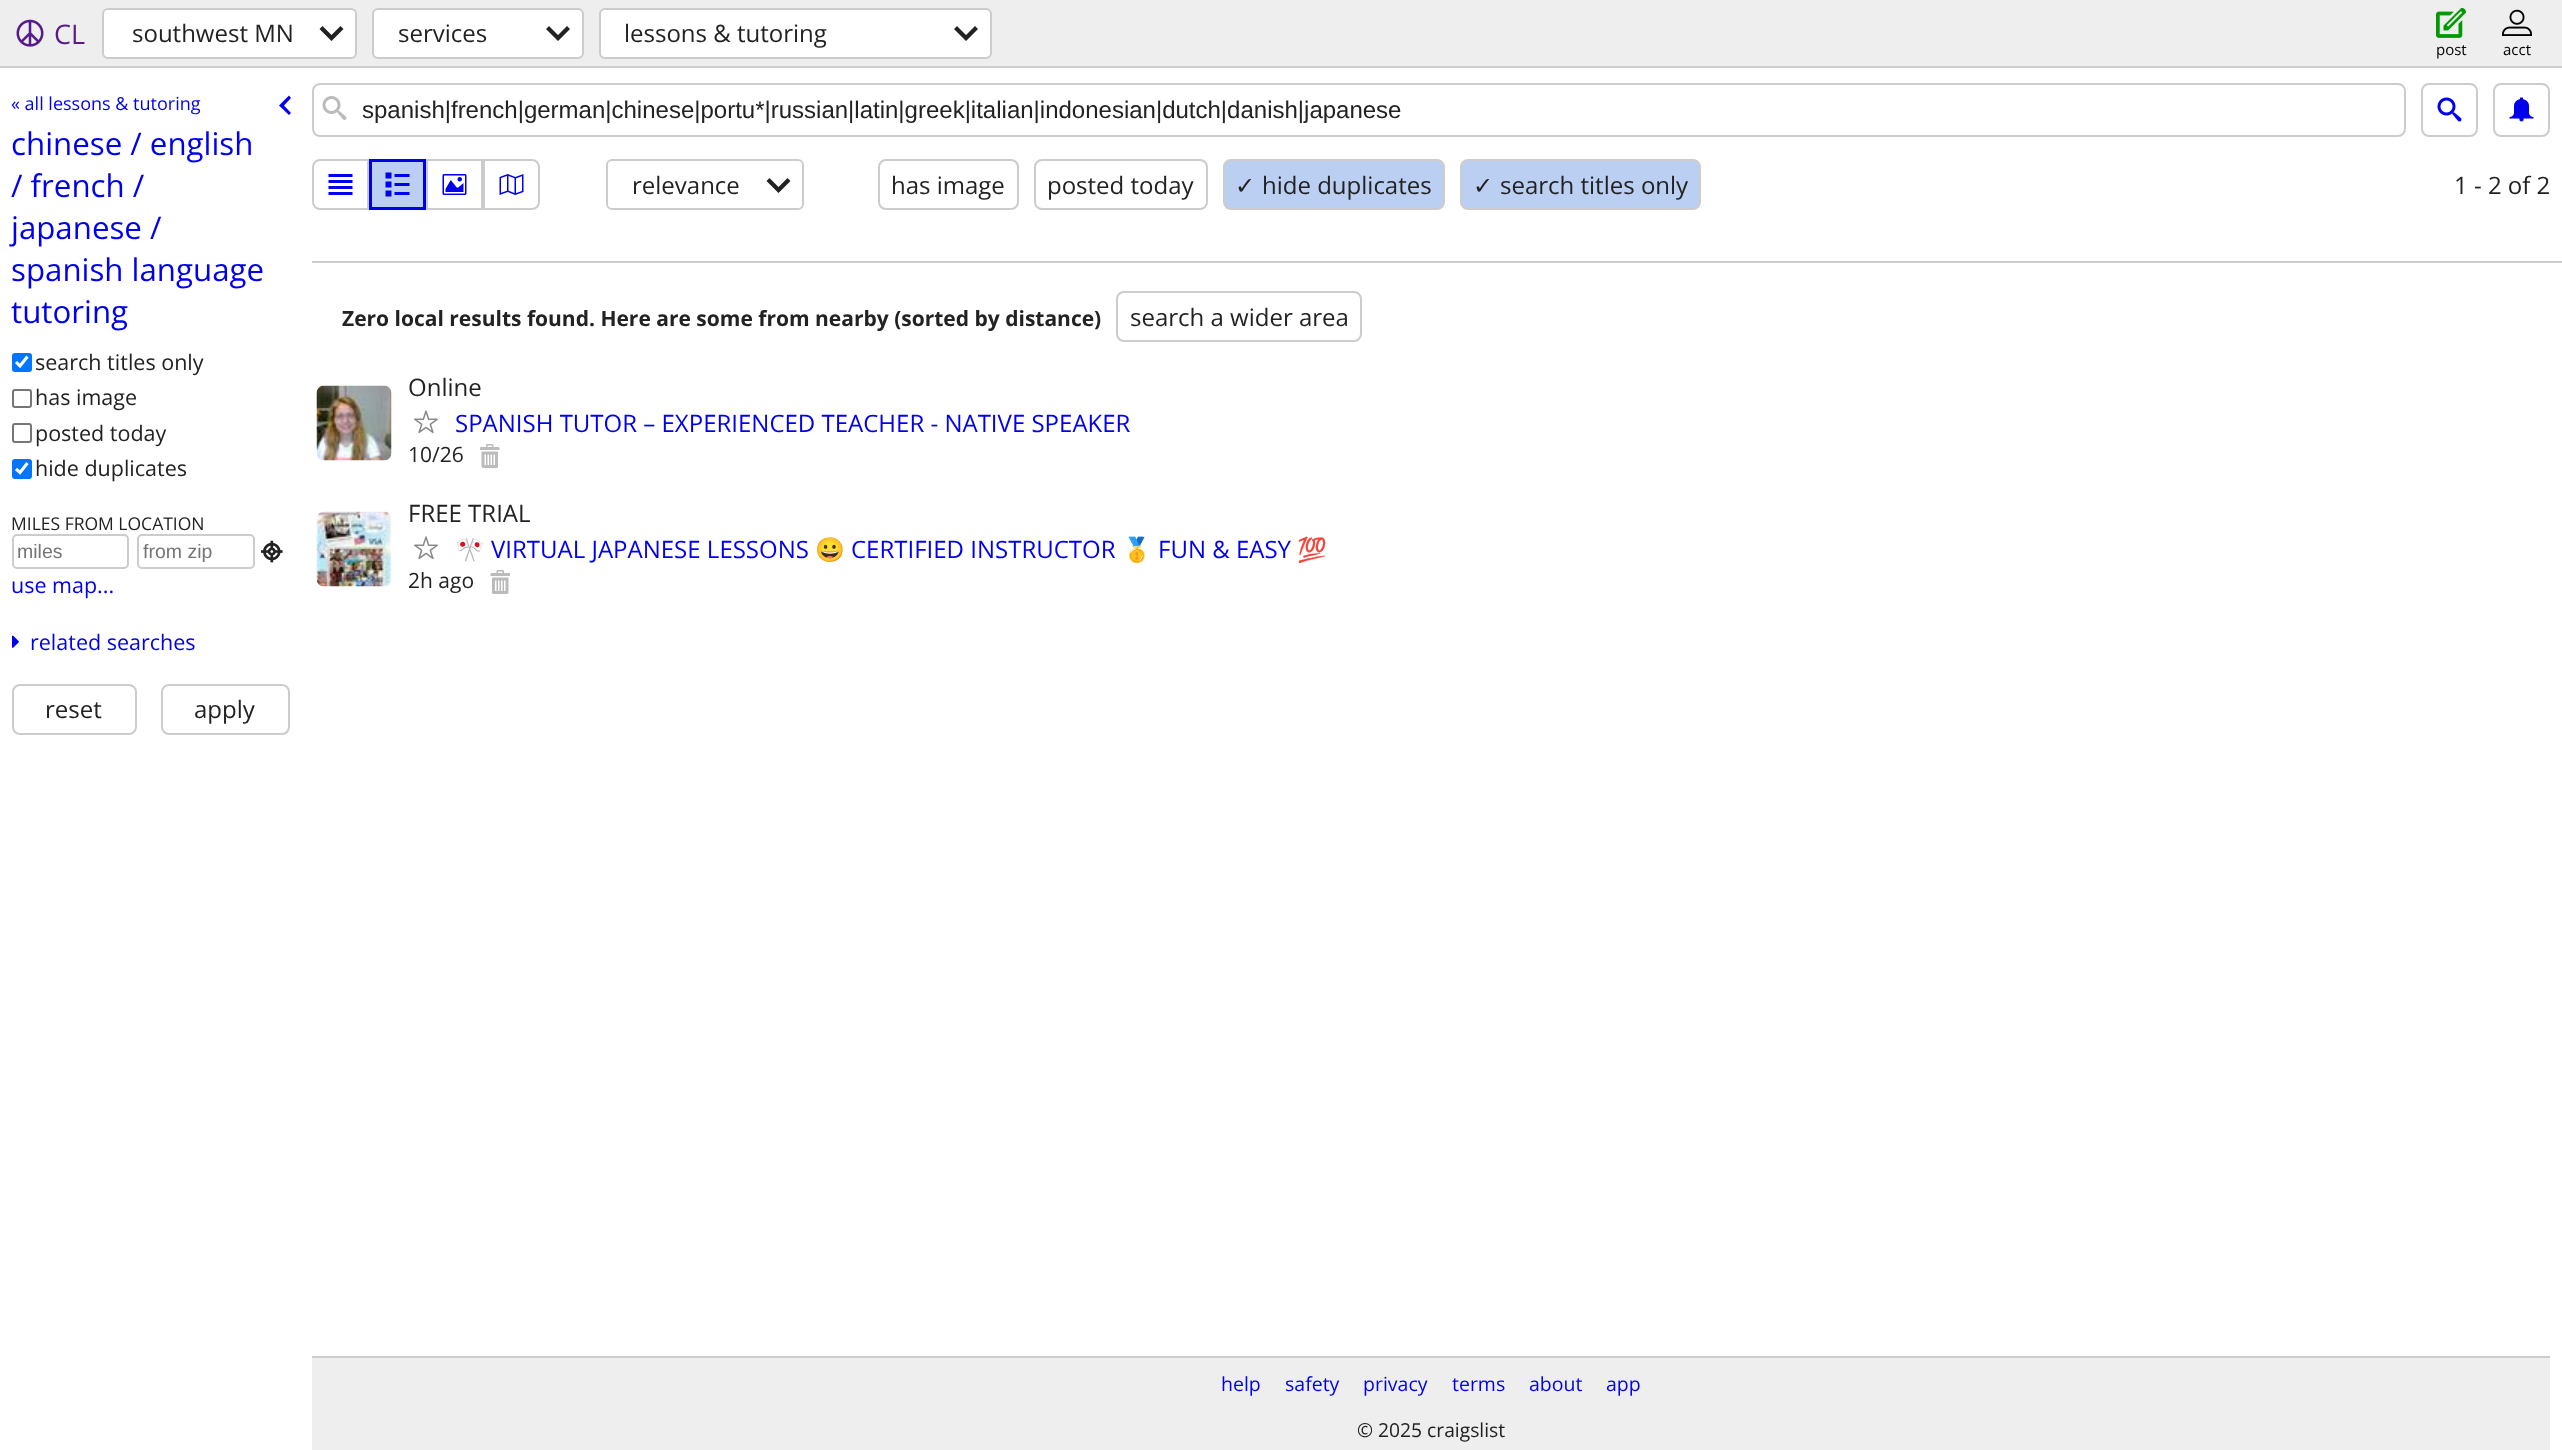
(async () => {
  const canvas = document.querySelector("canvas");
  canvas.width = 2562;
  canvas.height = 1450;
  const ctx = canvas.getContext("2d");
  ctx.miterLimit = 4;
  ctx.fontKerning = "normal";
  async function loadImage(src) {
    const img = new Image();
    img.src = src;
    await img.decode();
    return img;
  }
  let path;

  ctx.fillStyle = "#ffffff";
  ctx.fillRect(0, 0, 2562, 1450);
  ctx.fillStyle = "#eeeeee";
  ctx.fillRect(0, 0, 2562, 66);
  ctx.fillStyle = "#cccccc";
  ctx.fillRect(0, 66, 2562, 2);
  ctx.drawImage(await loadImage("img/1.png"), 16, 19, 28, 28);
  ctx.fillStyle = "#ffffff";
  ctx.beginPath();
  ctx.roundRect(103, 9, 253, 49, 5);
  ctx.fill();
  ctx.strokeStyle = "#cccccc";
  ctx.lineWidth = 2;
  ctx.stroke();
  ctx.fillStyle = "#222222";
  path = new Path2D("M343.5 29L340.5 26L331.5 35L322.5 26L319.5 29L331.5 41Z");
  ctx.fill(path);
  ctx.fillStyle = "#ffffff";
  ctx.beginPath();
  ctx.roundRect(373, 9, 210, 49, 5);
  ctx.fill();
  ctx.stroke();
  ctx.fillStyle = "#222222";
  path = new Path2D("M570 29L567 26L558 35L549 26L546 29L558 41Z");
  ctx.fill(path);
  ctx.fillStyle = "#ffffff";
  ctx.beginPath();
  ctx.roundRect(600, 9, 391, 49, 5);
  ctx.fill();
  ctx.stroke();
  ctx.fillStyle = "#222222";
  path = new Path2D("M978 29L975 26L966 35L957 26L954 29L966 41Z");
  ctx.fill(path);
  ctx.drawImage(await loadImage("img/2.png"), 2436, 7, 30, 31);
  ctx.drawImage(await loadImage("img/3.png"), 2502, 9, 30, 27);
  ctx.fillStyle = "#0000ee";
  path = new Path2D("M289 115L291 113L284 105.5L291 98L289 95.5L279 105.5Z");
  ctx.fill(path);
  ctx.fillStyle = "#0075ff";
  ctx.beginPath();
  ctx.roundRect(12, 353, 20, 19, 3);
  ctx.fill();
  path = new Path2D("M16 362L20 366L27.5 356.5");
  ctx.strokeStyle = "#ffffff";
  ctx.lineWidth = 3.1;
  ctx.stroke(path);
  ctx.beginPath();
  ctx.roundRect(13, 390, 18, 17, 2);
  ctx.strokeStyle = "#767676";
  ctx.lineWidth = 2;
  ctx.stroke();
  ctx.beginPath();
  ctx.roundRect(13, 424, 18, 18, 2);
  ctx.stroke();
  ctx.beginPath();
  ctx.roundRect(12, 459, 20, 20, 3);
  ctx.fill();
  path = new Path2D("M16 469L20 472.5L27.5 463");
  ctx.strokeStyle = "#ffffff";
  ctx.lineWidth = 3.1;
  ctx.stroke(path);
  ctx.beginPath();
  ctx.roundRect(13, 535, 115, 33, 4);
  ctx.strokeStyle = "#cccccc";
  ctx.lineWidth = 2;
  ctx.stroke();
  ctx.beginPath();
  ctx.roundRect(138, 535, 116, 33, 4);
  ctx.stroke();
  ctx.drawImage(await loadImage("img/4.png"), 261, 540, 22, 23);
  ctx.drawImage(await loadImage("img/5.png"), 12, 635, 7, 13);
  ctx.beginPath();
  ctx.roundRect(13, 685, 123, 49, 7);
  ctx.stroke();
  ctx.beginPath();
  ctx.roundRect(162, 685, 127, 49, 7);
  ctx.stroke();
  ctx.beginPath();
  ctx.roundRect(313, 84, 2092, 52, 7);
  ctx.stroke();
  ctx.drawImage(await loadImage("img/6.png"), 322, 96, 25, 24);
  ctx.beginPath();
  ctx.roundRect(2422, 84, 55, 52, 7);
  ctx.stroke();
  ctx.drawImage(await loadImage("img/7.png"), 2437, 97, 25, 25);
  ctx.beginPath();
  ctx.roundRect(2494, 84, 55, 52, 7);
  ctx.stroke();
  ctx.drawImage(await loadImage("img/8.png"), 2509, 97, 25, 25);
  ctx.beginPath();
  ctx.roundRect(313, 160, 55, 49, [7, 0, 0, 7]);
  ctx.stroke();
  ctx.drawImage(await loadImage("img/9.png"), 328, 174, 25, 21);
  ctx.fillStyle = "#bacff2";
  ctx.beginPath();
  ctx.rect(370.5, 160.5, 54, 48);
  ctx.fill();
  ctx.strokeStyle = "#0000ee";
  ctx.lineWidth = 3;
  ctx.stroke();
  ctx.drawImage(await loadImage("img/10.png"), 385, 172, 25, 25);
  ctx.strokeStyle = "#cccccc";
  ctx.lineWidth = 2;
  ctx.strokeRect(427, 160, 55, 49);
  ctx.drawImage(await loadImage("img/11.png"), 442, 174, 25, 21);
  ctx.beginPath();
  ctx.roundRect(484, 160, 55, 49, [0, 7, 7, 0]);
  ctx.stroke();
  ctx.drawImage(await loadImage("img/12.png"), 499, 174, 25, 21);
  ctx.beginPath();
  ctx.roundRect(607, 160, 196, 49, 5);
  ctx.stroke();
  ctx.fillStyle = "#222222";
  path = new Path2D("M790.5 181L787.5 178L778.5 187L769.5 178L766.5 181L778.5 193Z");
  ctx.fill(path);
  ctx.beginPath();
  ctx.roundRect(879, 160, 139, 49, 7);
  ctx.stroke();
  ctx.beginPath();
  ctx.roundRect(1035, 160, 172, 49, 7);
  ctx.stroke();
  ctx.fillStyle = "#bacff2";
  ctx.beginPath();
  ctx.roundRect(1224, 160, 220, 49, 7);
  ctx.fill();
  ctx.stroke();
  ctx.beginPath();
  ctx.roundRect(1461, 160, 239, 49, 7);
  ctx.fill();
  ctx.stroke();
  ctx.fillStyle = "#cccccc";
  ctx.fillRect(312, 261, 2250, 2);
  ctx.beginPath();
  ctx.roundRect(1117, 292, 244, 49, 7);
  ctx.stroke();
  ctx.drawImage(await loadImage("img/13.png"), 316, 385, 76, 76);
  ctx.drawImage(await loadImage("img/14.png"), 414, 410, 24, 24);
  ctx.drawImage(await loadImage("img/15.png"), 480, 444, 20, 24);
  ctx.drawImage(await loadImage("img/16.png"), 316, 511, 76, 76);
  ctx.drawImage(await loadImage("img/14.png"), 414, 536, 24, 24);
  ctx.drawImage(await loadImage("img/17.png"), 490, 570, 20, 24);
  ctx.fillStyle = "#eeeeee";
  ctx.fillRect(312, 1358, 2238, 92);
  ctx.fillStyle = "#cccccc";
  ctx.fillRect(312, 1356, 2238, 2);
  ctx.font = "27px Open Sans";
  ctx.fillStyle = "#551a8b";
  ctx.fillText("CL", 54, 44);
  ctx.font = "24px Open Sans";
  ctx.fillStyle = "#222222";
  for (const [text, x, y] of [
    ["southwest MN", 132, 42],
    ["services", 398, 42],
    ["lessons & tutoring", 624, 42],
  ]) {
    ctx.fillText(text, x, y);
  }
  ctx.font = "15px Open Sans";
  ctx.fillStyle = "#000000";
  ctx.fillText("post", 2436, 55);
  ctx.fillText("acct", 2503, 55);
  ctx.font = "18px Open Sans";
  ctx.fillStyle = "#0000ee";
  ctx.fillText("« all lessons & tutoring", 11, 110);
  ctx.font = "31.25px Open Sans";
  for (const [text, x, y] of [
    ["chinese / english", 11, 155],
    ["/ french /", 11, 197],
    ["japanese /", 11, 239],
    ["spanish language", 11, 281],
    ["tutoring", 11, 323],
  ]) {
    ctx.fillText(text, x, y);
  }
  ctx.font = "21.5px Open Sans";
  ctx.fillStyle = "#222222";
  for (const [text, x, y] of [
    ["search titles only", 35, 370],
    ["has image", 35, 405],
    ["posted today", 35, 441],
    ["hide duplicates", 35, 476],
  ]) {
    ctx.fillText(text, x, y);
  }
  ctx.font = "17.5px Open Sans";
  ctx.fillText("MILES FROM LOCATION", 11, 530);
  ctx.font = "19.5px Liberation Sans";
  ctx.fillStyle = "#757575";
  ctx.fillText("miles", 17, 558);
  ctx.fillText("from zip", 143, 558);
  ctx.font = "21.5px Open Sans";
  ctx.fillStyle = "#0000ee";
  ctx.fillText("use map...", 11, 593);
  ctx.fillText("related searches", 30, 650);
  ctx.font = "24px Open Sans";
  ctx.fillStyle = "#222222";
  ctx.fillText("reset", 45, 718);
  ctx.fillText("apply", 194, 718);
  ctx.font = "24px Liberation Sans";
  ctx.fillText("spanish|french|german|chinese|portu*|russian|latin|greek|italian|indonesian|dutch|danish|japanese", 362, 118);
  ctx.font = "24px Open Sans";
  for (const [text, x, y] of [
    ["relevance", 632, 194],
    ["has image", 891, 194],
    ["posted today", 1047, 194],
  ]) {
    ctx.fillText(text, x, y);
  }
  ctx.font = "24px DejaVu Sans";
  ctx.fillText("✓", 1235, 194);
  ctx.font = "24px Open Sans";
  ctx.fillText("hide duplicates", 1262, 194);
  ctx.font = "24px DejaVu Sans";
  ctx.fillText("✓", 1473, 194);
  ctx.font = "24px Open Sans";
  ctx.fillText("search titles only", 1500, 194);
  ctx.fillText("1 - 2 of 2", 2454, 194);
  ctx.font = "bold 21px Open Sans";
  ctx.fillText("Zero local results found. Here are some from nearby (sorted by distance)", 342, 326);
  ctx.font = "24px Open Sans";
  ctx.fillText("search a wider area", 1130, 326);
  ctx.fillText("Online", 408, 396);
  ctx.fillStyle = "#0000ee";
  ctx.fillText("SPANISH TUTOR – EXPERIENCED TEACHER - NATIVE SPEAKER", 455, 432);
  ctx.font = "21px Open Sans";
  ctx.fillStyle = "#222222";
  ctx.fillText("10/26", 408, 462);
  ctx.font = "24px Open Sans";
  ctx.fillText("FREE TRIAL", 408, 522);
  ctx.font = "24px Noto Color Emoji";
  ctx.fillStyle = "#0000ee";
  ctx.fillText("🎌", 455, 558);
  ctx.font = "24px Open Sans";
  ctx.fillText("VIRTUAL JAPANESE LESSONS", 491, 558);
  ctx.font = "24px Noto Color Emoji";
  ctx.fillText("😀", 815, 558);
  ctx.font = "24px Open Sans";
  ctx.fillText("CERTIFIED INSTRUCTOR", 851, 558);
  ctx.font = "24px Noto Color Emoji";
  ctx.fillText("🥇", 1122, 558);
  ctx.font = "24px Open Sans";
  ctx.fillText("FUN & EASY", 1158, 558);
  ctx.font = "24px Noto Color Emoji";
  ctx.fillText("💯", 1297, 558);
  ctx.font = "21px Open Sans";
  ctx.fillStyle = "#222222";
  ctx.fillText("2h ago", 408, 588);
  ctx.font = "19.5px Open Sans";
  ctx.fillStyle = "#0000ee";
  for (const [text, x, y] of [
    ["help", 1221, 1391],
    ["safety", 1285, 1391],
    ["privacy", 1363, 1391],
    ["terms", 1452, 1391],
    ["about", 1529, 1391],
    ["app", 1606, 1391],
  ]) {
    ctx.fillText(text, x, y);
  }
  ctx.font = "19.25px Open Sans";
  ctx.fillStyle = "#222222";
  ctx.fillText("© 2025 craigslist", 1357, 1437);
})();
